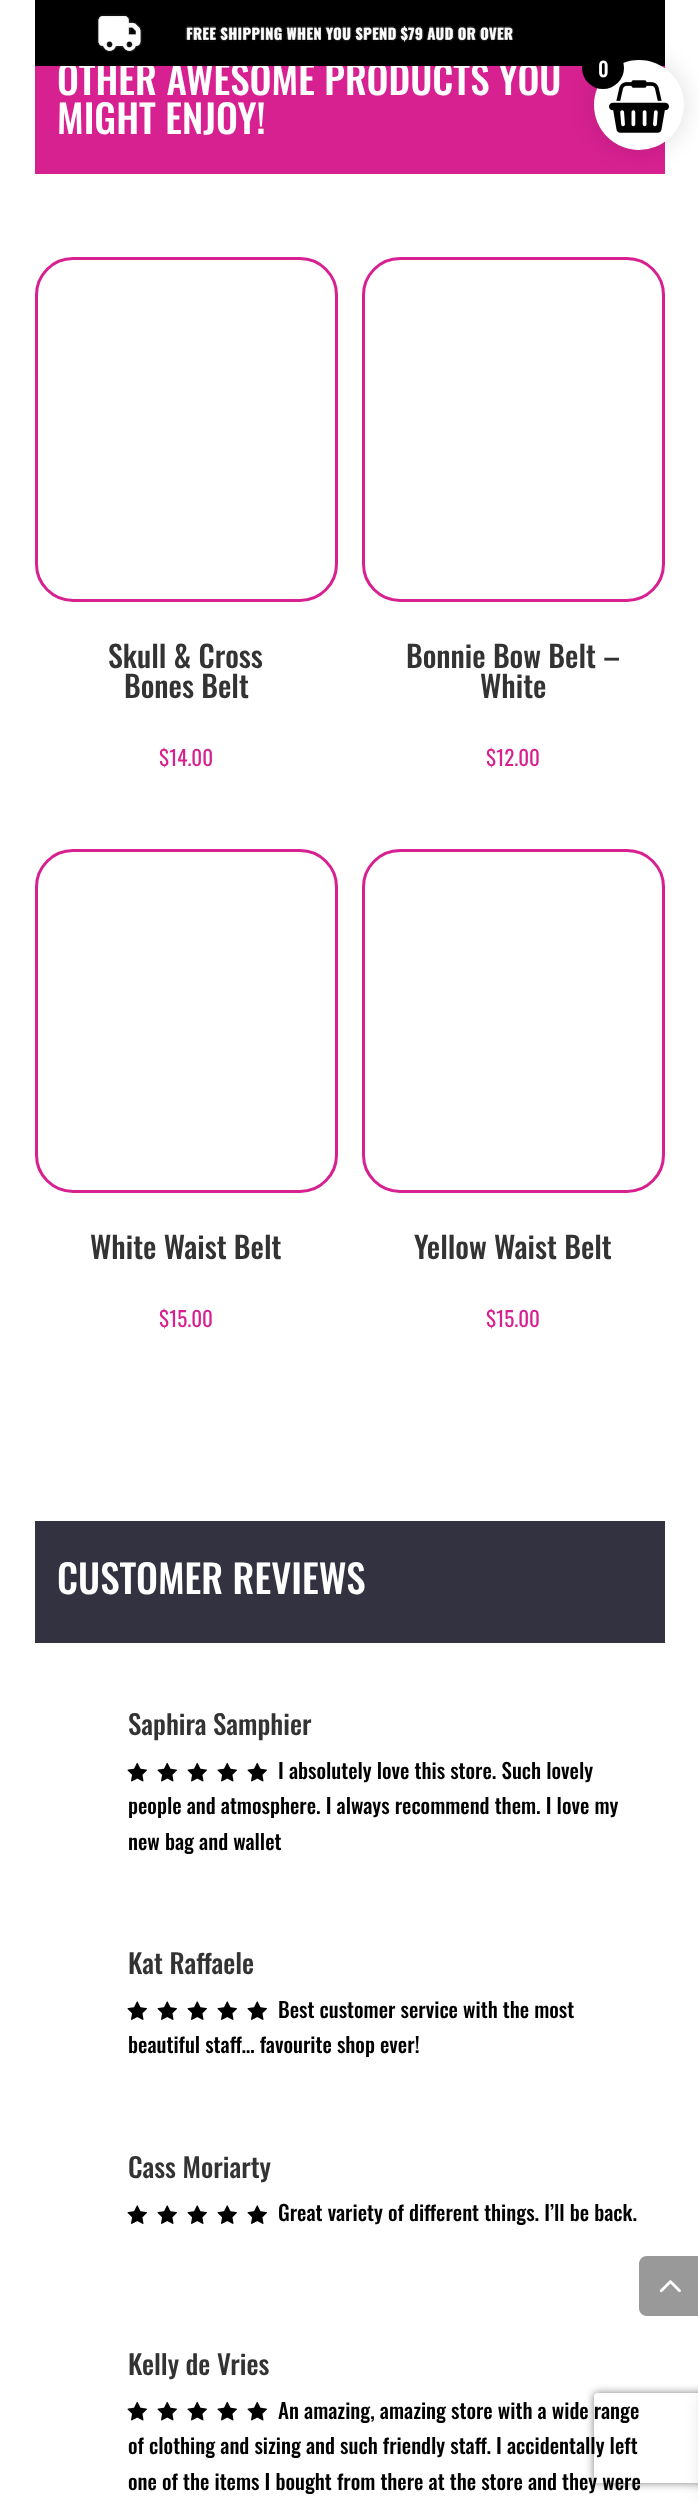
(async () => {
  const canvas = document.querySelector("canvas");
  canvas.width = 698;
  canvas.height = 2503;
  const ctx = canvas.getContext("2d");
  ctx.miterLimit = 4;
  ctx.fontKerning = "normal";
  async function loadImage(src) {
    const img = new Image();
    img.src = src;
    await img.decode();
    return img;
  }
  let path;

  ctx.fillStyle = "#ffffff";
  ctx.fillRect(0, 0, 698, 2503);
  ctx.fillStyle = "rgba(0, 0, 0, 0.1)";
  ctx.filter = "blur(7.5px)";
  ctx.beginPath();
  ctx.rect(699, 2394, 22, 102);
  ctx.fill();
  ctx.filter = "none";
  ctx.fillStyle = "#d72191";
  ctx.fillRect(35, 66, 630, 108);
  ctx.beginPath();
  ctx.roundRect(36.5, 258.5, 300, 342, 36.5);
  ctx.strokeStyle = "#d72191";
  ctx.lineWidth = 3;
  ctx.stroke();
  ctx.beginPath();
  ctx.roundRect(363.5, 258.5, 300, 342, 36.5);
  ctx.stroke();
  ctx.beginPath();
  ctx.roundRect(36.5, 850.5, 300, 341, 36.5);
  ctx.stroke();
  ctx.beginPath();
  ctx.roundRect(363.5, 850.5, 300, 341, 36.5);
  ctx.stroke();
  ctx.fillStyle = "#333240";
  ctx.fillRect(35, 1521, 630, 122);
  ctx.drawImage(await loadImage("img/3.png"), 127, 1762, 20, 20);
  ctx.drawImage(await loadImage("img/3.png"), 157, 1762, 20, 20);
  ctx.drawImage(await loadImage("img/3.png"), 187, 1762, 20, 20);
  ctx.drawImage(await loadImage("img/3.png"), 217, 1762, 20, 20);
  ctx.drawImage(await loadImage("img/3.png"), 247, 1762, 20, 20);
  ctx.drawImage(await loadImage("img/4.png"), 127, 2001, 20, 19);
  ctx.drawImage(await loadImage("img/4.png"), 157, 2001, 20, 19);
  ctx.drawImage(await loadImage("img/4.png"), 187, 2001, 20, 19);
  ctx.drawImage(await loadImage("img/4.png"), 217, 2001, 20, 19);
  ctx.drawImage(await loadImage("img/4.png"), 247, 2001, 20, 19);
  ctx.drawImage(await loadImage("img/4.png"), 127, 2205, 20, 19);
  ctx.drawImage(await loadImage("img/4.png"), 157, 2205, 20, 19);
  ctx.drawImage(await loadImage("img/4.png"), 187, 2205, 20, 19);
  ctx.drawImage(await loadImage("img/4.png"), 217, 2205, 20, 19);
  ctx.drawImage(await loadImage("img/4.png"), 247, 2205, 20, 19);
  ctx.drawImage(await loadImage("img/3.png"), 127, 2401, 20, 20);
  ctx.drawImage(await loadImage("img/3.png"), 157, 2401, 20, 20);
  ctx.drawImage(await loadImage("img/3.png"), 187, 2401, 20, 20);
  ctx.drawImage(await loadImage("img/3.png"), 217, 2401, 20, 20);
  ctx.drawImage(await loadImage("img/3.png"), 247, 2401, 20, 20);
  ctx.fillStyle = "#999999";
  path = new Path2D("M647 2256H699V2316H647C642.5 2316 639 2312.5 639 2308V2264C639 2259.5 642.5 2256 647 2256Z");
  ctx.fill(path);
  ctx.drawImage(await loadImage("img/5.png"), 659, 2280, 22, 13);
  ctx.save();
  path = new Path2D("M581 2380H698V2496H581ZM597 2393H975C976.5 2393 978 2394.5 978 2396V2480C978 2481.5 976.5 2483 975 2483H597C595.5 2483 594 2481.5 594 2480V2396C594 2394.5 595.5 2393 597 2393Z");
  ctx.clip(path, "evenodd");
  ctx.fillStyle = "#808080";
  ctx.filter = "blur(4px)";
  ctx.beginPath();
  ctx.roundRect(594, 2393, 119, 90, 3);
  ctx.fill();
  ctx.filter = "none";
  ctx.restore();
  ctx.font = "500 39px Oswald";
  ctx.fillStyle = "#ffffff";
  ctx.fillText("OTHER AWESOME PRODUCTS YOU", 57, 95);
  ctx.fillStyle = "#000000";
  ctx.fillRect(35, 0, 630, 66);
  ctx.fillStyle = "rgba(0, 0, 0, 0.1)";
  ctx.filter = "blur(11px)";
  ctx.beginPath();
  ctx.roundRect(591, 57, 96, 96, 48);
  ctx.fill();
  ctx.filter = "none";
  ctx.fillStyle = "#ffffff";
  ctx.beginPath();
  ctx.arc(639, 105, 45, 0, Math.PI * 2);
  ctx.fill();
  ctx.drawImage(await loadImage("img/1.png"), 609, 80, 60, 53);
  ctx.fillStyle = "#000000";
  ctx.beginPath();
  ctx.arc(603, 68, 21, 0, Math.PI * 2);
  ctx.fill();
  ctx.font = "500 20px Oswald";
  ctx.fillStyle = "#ffffff";
  ctx.fillText("0", 598, 77);
  ctx.drawImage(await loadImage("img/2.png"), 97, 14, 417, 38);
  ctx.font = "500 39px Oswald";
  ctx.fillText("MIGHT ENJOY!", 57, 134);
  ctx.font = "500 30px Oswald";
  ctx.fillStyle = "#333333";
  ctx.fillText("Skull & Cross", 108, 668);
  ctx.fillText("Bones Belt", 124, 698);
  ctx.font = "21px Oswald";
  ctx.fillStyle = "#d72191";
  ctx.fillText("$14.00", 159, 766);
  ctx.font = "500 30px Oswald";
  ctx.fillStyle = "#333333";
  ctx.fillText("Bonnie Bow Belt –", 406, 668);
  ctx.fillText("White", 480, 698);
  ctx.font = "21px Oswald";
  ctx.fillStyle = "#d72191";
  ctx.fillText("$12.00", 486, 766);
  ctx.font = "500 30px Oswald";
  ctx.fillStyle = "#333333";
  ctx.fillText("White Waist Belt", 90, 1259);
  ctx.font = "21px Oswald";
  ctx.fillStyle = "#d72191";
  ctx.fillText("$15.00", 159, 1327);
  ctx.font = "500 30px Oswald";
  ctx.fillStyle = "#333333";
  ctx.fillText("Yellow Waist Belt", 414, 1259);
  ctx.font = "21px Oswald";
  ctx.fillStyle = "#d72191";
  ctx.fillText("$15.00", 486, 1327);
  ctx.font = "500 39px Oswald";
  ctx.fillStyle = "#ffffff";
  ctx.fillText("CUSTOMER REVIEWS", 57, 1594);
  ctx.font = "500 27px Oswald";
  ctx.fillStyle = "#333333";
  ctx.fillText("Saphira Samphier", 128, 1735);
  ctx.font = "500 21px Oswald";
  ctx.fillStyle = "#000000";
  for (const [text, x, y] of [
    ["I absolutely love this store. Such lovely", 278, 1779],
    ["people and atmosphere. I always recommend them. I love my", 128, 1814],
    ["new bag and wallet", 128, 1850],
  ]) {
    ctx.fillText(text, x, y);
  }
  ctx.font = "500 27px Oswald";
  ctx.fillStyle = "#333333";
  ctx.fillText("Kat Raffaele", 128, 1974);
  ctx.font = "500 21px Oswald";
  ctx.fillStyle = "#000000";
  ctx.fillText("Best customer service with the most", 278, 2018);
  ctx.fillText("beautiful staff… favourite shop ever!", 128, 2053);
  ctx.font = "500 27px Oswald";
  ctx.fillStyle = "#333333";
  ctx.fillText("Cass Moriarty", 128, 2178);
  ctx.font = "500 21px Oswald";
  ctx.fillStyle = "#000000";
  ctx.fillText("Great variety of different things. I’ll be back.", 278, 2221);
  ctx.font = "500 27px Oswald";
  ctx.fillStyle = "#333333";
  ctx.fillText("Kelly de Vries", 128, 2375);
  ctx.font = "500 21px Oswald";
  ctx.fillStyle = "#000000";
  for (const [text, x, y] of [
    ["An amazing, amazing store with a wide range", 278, 2419],
    ["of clothing and sizing and such friendly staff. I accidentally left", 128, 2454],
    ["one of the items I bought from there at the store and they were", 128, 2490],
  ]) {
    ctx.fillText(text, x, y);
  }
})();
